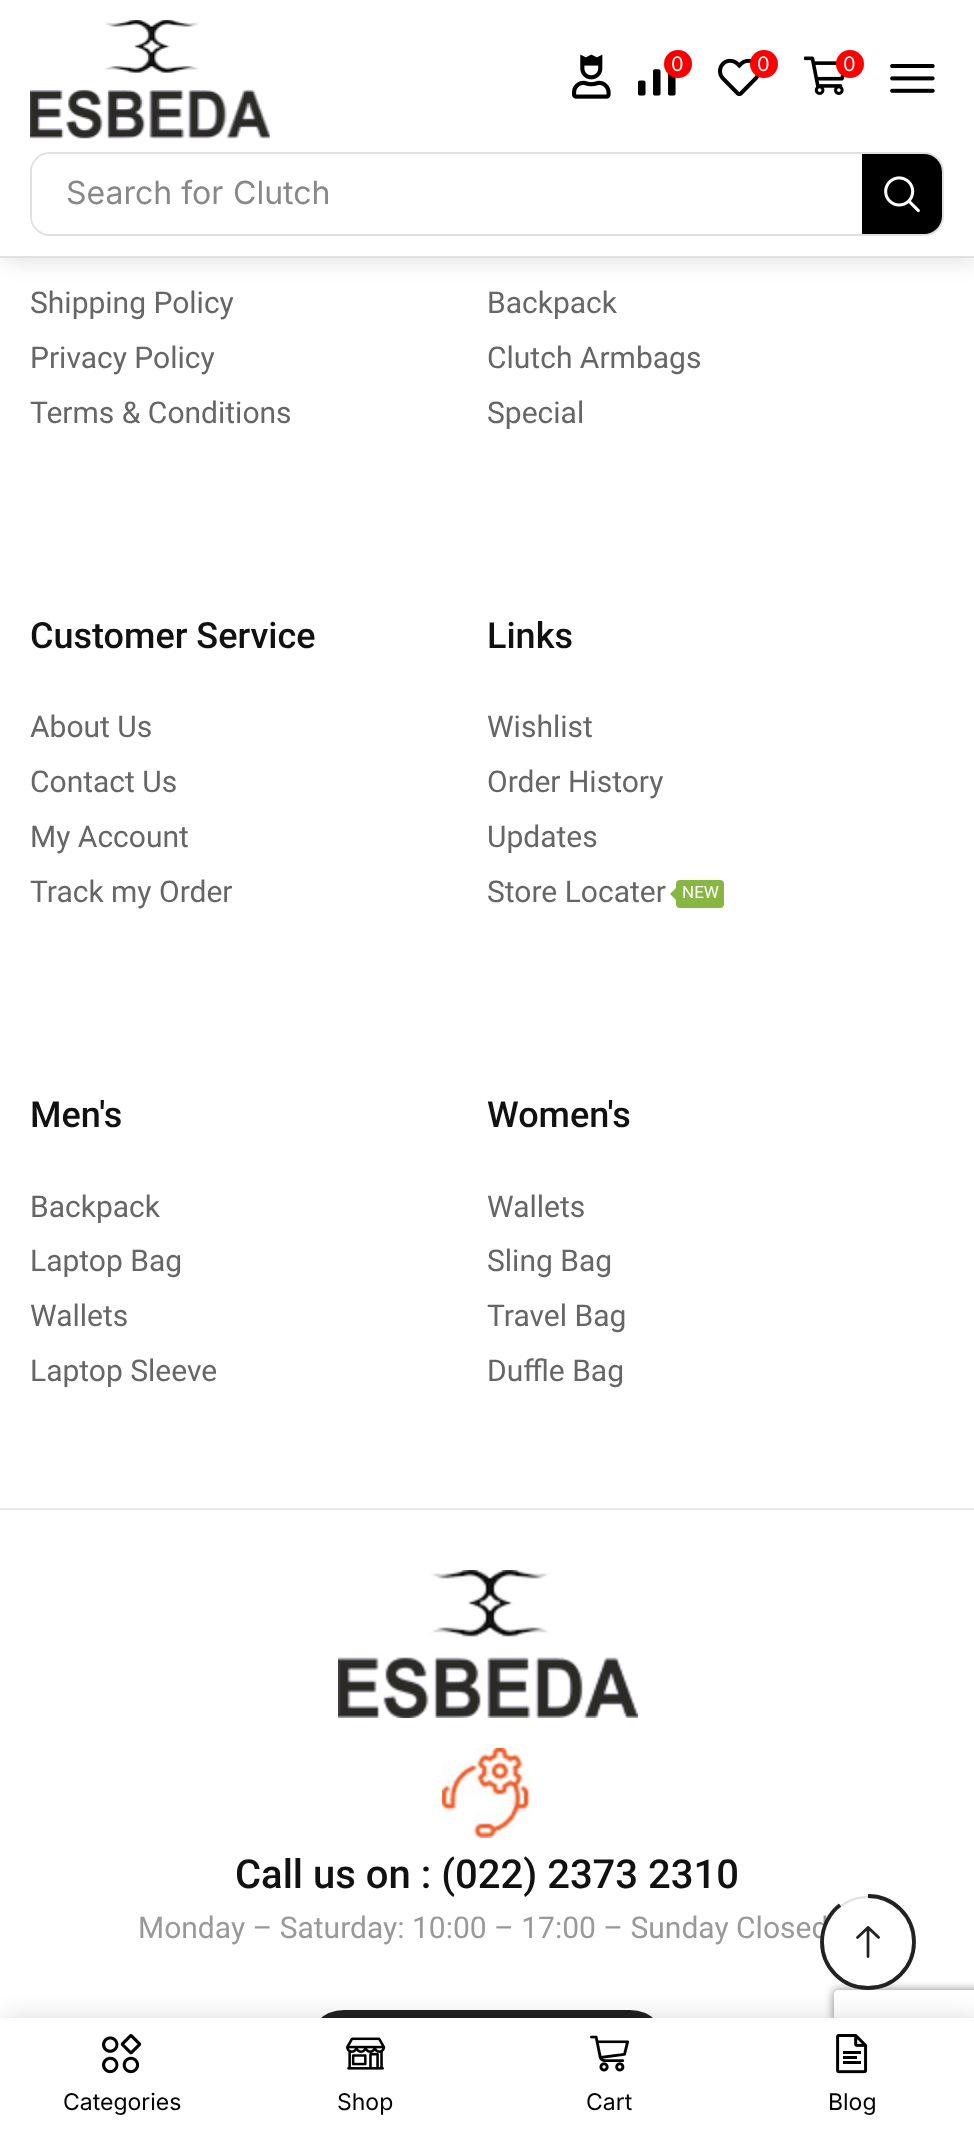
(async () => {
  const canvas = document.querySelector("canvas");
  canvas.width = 974;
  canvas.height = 2138;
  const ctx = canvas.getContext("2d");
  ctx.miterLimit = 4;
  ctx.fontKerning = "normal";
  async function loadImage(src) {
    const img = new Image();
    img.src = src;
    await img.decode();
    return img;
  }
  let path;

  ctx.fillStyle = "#ffffff";
  ctx.fillRect(0, 0, 974, 2138);
  ctx.fillStyle = "rgba(0, 0, 0, 0.15)";
  ctx.filter = "blur(12px)";
  ctx.beginPath();
  ctx.rect(4, 0, 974, 258);
  ctx.fill();
  ctx.filter = "none";
  ctx.fillStyle = "#ffffff";
  ctx.fillRect(0, 0, 974, 256);
  ctx.fillStyle = "#e1e1e1";
  ctx.fillRect(0, 256, 974, 2);
  ctx.drawImage(await loadImage("img/1.png"), 30, 20, 240, 119);
  ctx.drawImage(await loadImage("img/2.png"), 572, 54, 39, 45);
  ctx.drawImage(await loadImage("img/3.png"), 638, 69, 38, 27);
  ctx.fillStyle = "#f80000";
  ctx.beginPath();
  ctx.arc(678, 64, 14, 0, Math.PI * 2);
  ctx.fill();
  ctx.drawImage(await loadImage("img/4.png"), 718, 58, 41, 38);
  ctx.fillStyle = "#ff0101";
  ctx.beginPath();
  ctx.arc(764, 64, 14, 0, Math.PI * 2);
  ctx.fill();
  ctx.drawImage(await loadImage("img/5.png"), 804, 56, 41, 39);
  ctx.fillStyle = "#ff0000";
  ctx.beginPath();
  ctx.arc(850, 64, 14, 0, Math.PI * 2);
  ctx.fill();
  ctx.drawImage(await loadImage("img/6.png"), 890, 64, 45, 29);
  ctx.beginPath();
  ctx.roundRect(31, 153, 912, 82, 19);
  ctx.strokeStyle = "#e1e1e1";
  ctx.lineWidth = 2;
  ctx.stroke();
  ctx.fillStyle = "#ffffff";
  ctx.beginPath();
  ctx.roundRect(32, 154, 830, 80, [18, 0, 0, 18]);
  ctx.fill();
  ctx.fillStyle = "#000000";
  ctx.beginPath();
  ctx.roundRect(862, 154, 80, 80, [0, 18, 18, 0]);
  ctx.fill();
  ctx.drawImage(await loadImage("img/7.png"), 884, 176, 36, 37);
  ctx.fillStyle = "#222222";
  ctx.beginPath();
  ctx.roundRect(308, 2012, 358, 72, 36);
  ctx.fill();
  ctx.strokeStyle = "#222222";
  ctx.lineWidth = 4;
  ctx.stroke();
  ctx.fillStyle = "rgba(0, 0, 0, 0.15)";
  ctx.filter = "blur(12px)";
  ctx.beginPath();
  ctx.rect(4, 2018, 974, 120);
  ctx.fill();
  ctx.filter = "none";
  ctx.save();
  path = new Path2D("M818 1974H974V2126H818ZM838 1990H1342C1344 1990 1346 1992 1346 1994V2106C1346 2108 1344 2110 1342 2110H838C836 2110 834 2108 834 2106V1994C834 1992 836 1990 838 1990Z");
  ctx.clip(path, "evenodd");
  ctx.fillStyle = "#808080";
  ctx.filter = "blur(5px)";
  ctx.beginPath();
  ctx.roundRect(834, 1990, 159, 120, 4);
  ctx.fill();
  ctx.filter = "none";
  ctx.restore();
  ctx.fillStyle = "#ffffff";
  ctx.fillRect(0, 2018, 974, 120);
  ctx.drawImage(await loadImage("img/9.png"), 102, 2034, 40, 40);
  ctx.drawImage(await loadImage("img/10.png"), 346, 2037, 40, 33);
  ctx.drawImage(await loadImage("img/11.png"), 590, 2035, 40, 37);
  ctx.drawImage(await loadImage("img/12.png"), 836, 2034, 32, 40);
  ctx.fillStyle = "#88b643";
  ctx.beginPath();
  ctx.roundRect(676, 880, 48, 28, 4);
  ctx.fill();
  path = new Path2D("M676 888V900L670 894Z");
  ctx.fill(path);
  ctx.fillStyle = "#e7e7e7";
  ctx.fillRect(0, 1508, 974, 2);
  ctx.drawImage(await loadImage("img/13.png"), 338, 1570, 300, 148);
  ctx.drawImage(await loadImage("img/14.png"), 442, 1748, 88, 90);
  ctx.font = "20px Inter";
  ctx.fillStyle = "#ffffff";
  for (const [text, x, y] of [
    ["0", 671, 71],
    ["0", 757, 71],
    ["0", 843, 71],
  ]) {
    ctx.fillText(text, x, y);
  }
  ctx.font = "32px Inter";
  ctx.fillStyle = "#888888";
  ctx.fillText("Search for", 66, 204);
  ctx.fillText("Clutch", 233, 204);
  ctx.font = "23px Inter";
  ctx.fillStyle = "#000000";
  for (const [text, x, y] of [
    ["Categories", 63, 2110],
    ["Shop", 337, 2110],
    ["Cart", 586, 2110],
    ["Blog", 828, 2110],
  ]) {
    ctx.fillText(text, x, y);
  }
  ctx.font = "30px Roboto";
  ctx.fillStyle = "#666666";
  for (const [text, x, y] of [
    ["Shipping Policy", 30, 313],
    ["Privacy Policy", 30, 368],
    ["Terms & Conditions", 30, 423],
    ["Backpack", 487, 313],
    ["Clutch Armbags", 487, 368],
    ["Special", 487, 423],
  ]) {
    ctx.fillText(text, x, y);
  }
  ctx.font = "500 36px Roboto";
  ctx.fillStyle = "#111111";
  ctx.fillText("Customer Service", 30, 648);
  ctx.font = "30px Roboto";
  ctx.fillStyle = "#666666";
  for (const [text, x, y] of [
    ["About Us", 30, 737],
    ["Contact Us", 30, 792],
    ["My Account", 30, 847],
    ["Track my Order", 30, 902],
  ]) {
    ctx.fillText(text, x, y);
  }
  ctx.font = "500 36px Roboto";
  ctx.fillStyle = "#111111";
  ctx.fillText("Links", 487, 648);
  ctx.font = "30px Roboto";
  ctx.fillStyle = "#666666";
  for (const [text, x, y] of [
    ["Wishlist", 487, 737],
    ["Order History", 487, 792],
    ["Updates", 487, 847],
    ["Store Locater", 487, 902],
  ]) {
    ctx.fillText(text, x, y);
  }
  ctx.font = "17px Roboto";
  ctx.fillStyle = "#ffffff";
  ctx.fillText("NEW", 682, 898);
  ctx.font = "500 36px Roboto";
  ctx.fillStyle = "#111111";
  ctx.fillText("Men's", 30, 1127);
  ctx.font = "30px Roboto";
  ctx.fillStyle = "#666666";
  for (const [text, x, y] of [
    ["Backpack", 30, 1217],
    ["Laptop Bag", 30, 1271],
    ["Wallets", 30, 1326],
    ["Laptop Sleeve", 30, 1381],
  ]) {
    ctx.fillText(text, x, y);
  }
  ctx.font = "500 36px Roboto";
  ctx.fillStyle = "#111111";
  ctx.fillText("Women's", 487, 1127);
  ctx.font = "30px Roboto";
  ctx.fillStyle = "#666666";
  for (const [text, x, y] of [
    ["Wallets", 487, 1217],
    ["Sling Bag", 487, 1271],
    ["Travel Bag", 487, 1326],
    ["Duffle Bag", 487, 1381],
  ]) {
    ctx.fillText(text, x, y);
  }
  ctx.font = "500 40px Roboto";
  ctx.fillStyle = "#111111";
  ctx.fillText("Call us on : (022) 2373 2310", 235, 1888);
  ctx.font = "30px Roboto";
  ctx.fillStyle = "#999999";
  ctx.fillText("Monday – Saturday: 10:00 – 17:00 – Sunday Closed", 138, 1938);
  ctx.fillStyle = "#ffffff";
  ctx.beginPath();
  ctx.arc(868, 1942, 45, 0, Math.PI * 2);
  ctx.fill();
  ctx.strokeStyle = "#e1e1e1";
  ctx.lineWidth = 2;
  ctx.stroke();
  path = new Path2D("M868 1896C893.5 1896 914 1916.5 914 1942C914 1967.5 893.5 1988 868 1988C842.5 1988 822 1967.5 822 1942C822 1927 829 1913.5 840 1905");
  ctx.strokeStyle = "#222222";
  ctx.lineWidth = 3.8;
  ctx.stroke(path);
  ctx.drawImage(await loadImage("img/8.png"), 856, 1926, 24, 32);
})();
